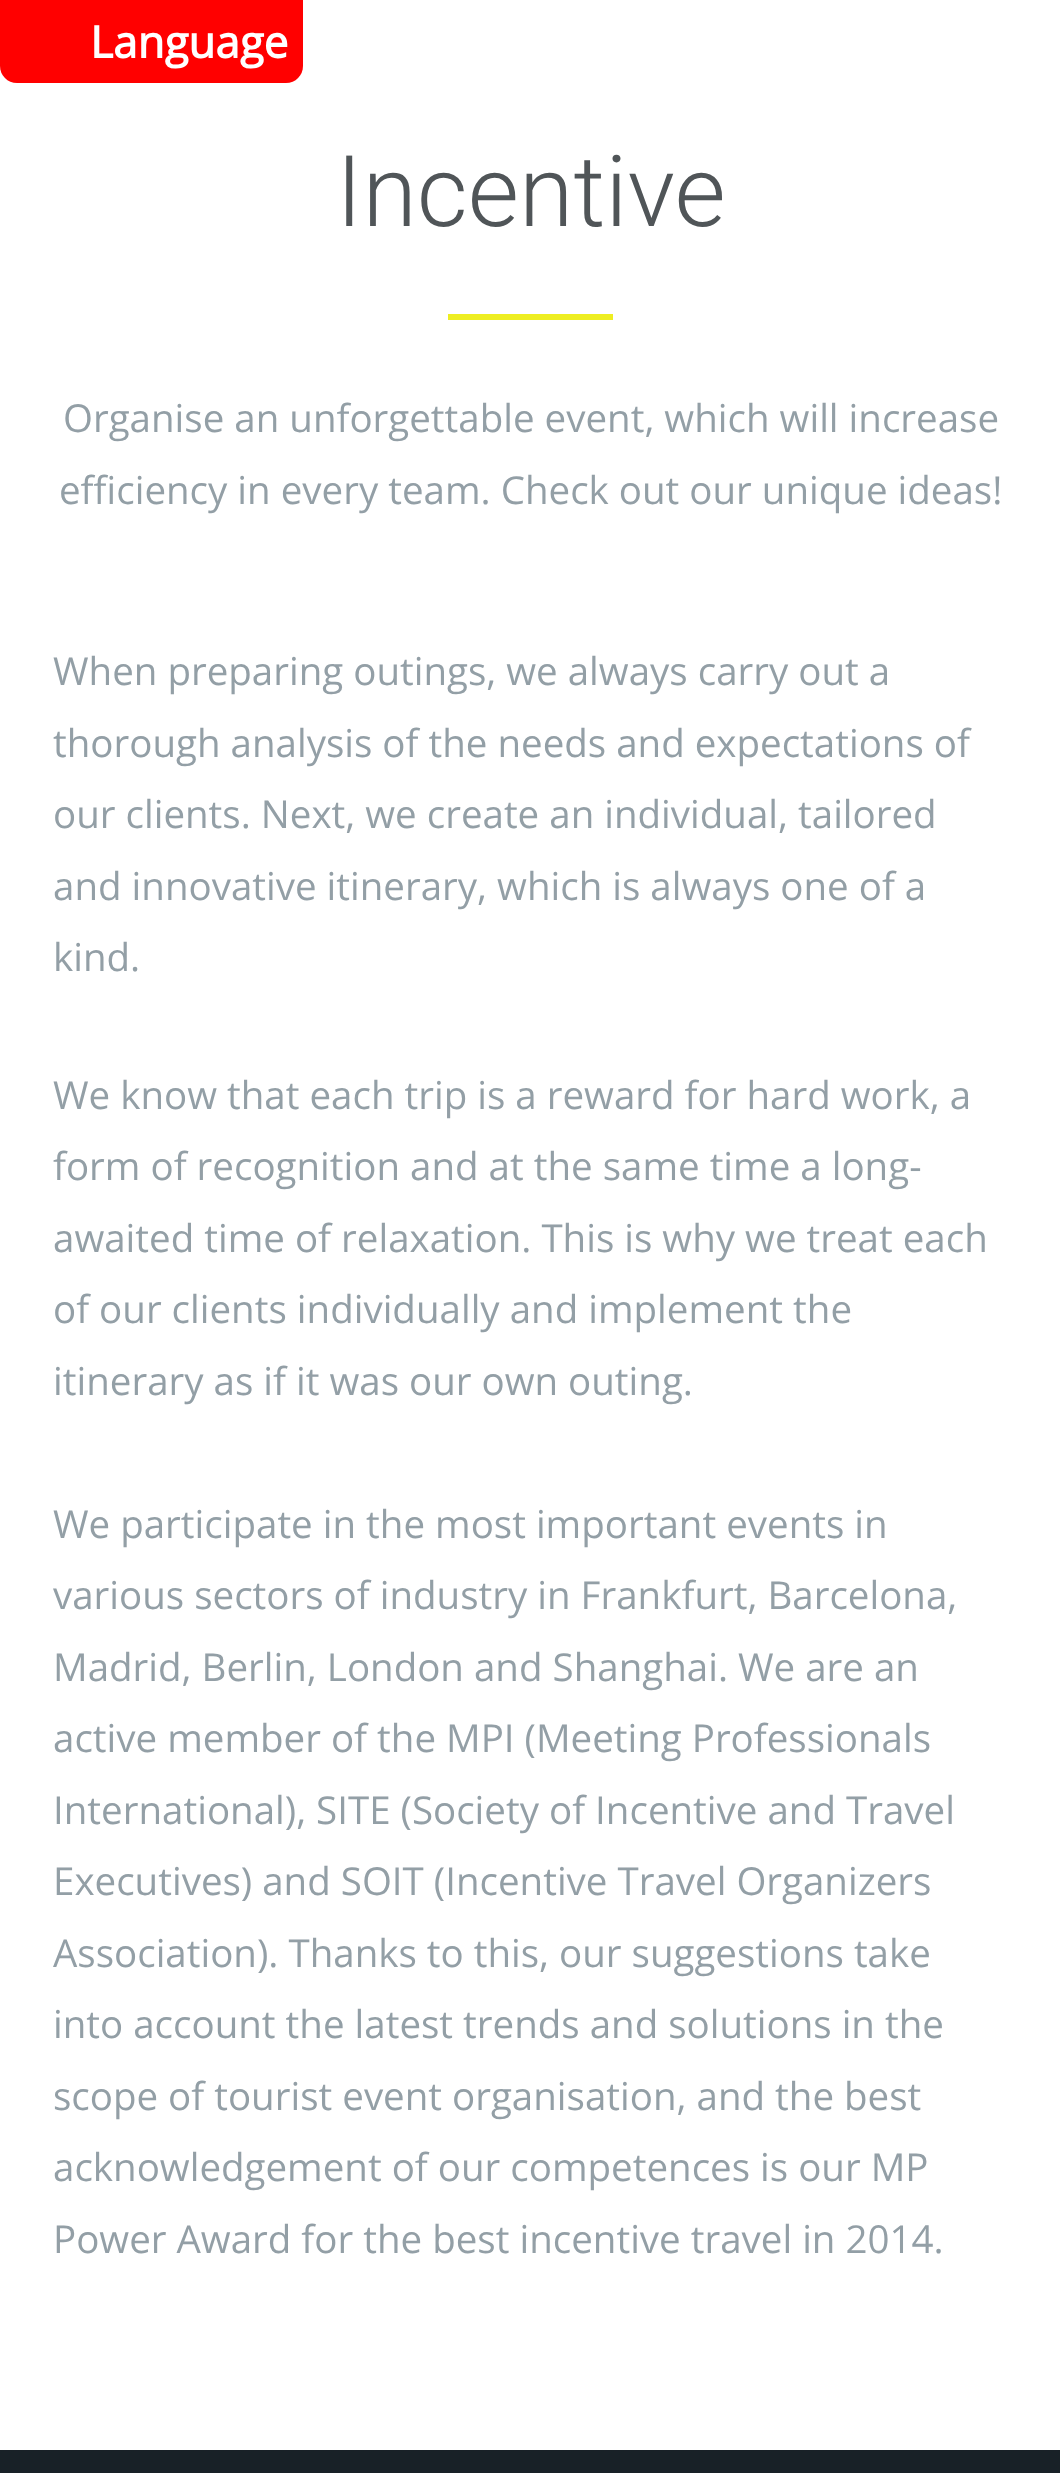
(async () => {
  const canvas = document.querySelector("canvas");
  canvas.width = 1060;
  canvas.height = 2473;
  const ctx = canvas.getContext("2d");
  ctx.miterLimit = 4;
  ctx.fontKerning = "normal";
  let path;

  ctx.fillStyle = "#ffffff";
  ctx.fillRect(0, 0, 1060, 2473);
  ctx.fillStyle = "#ff0000";
  path = new Path2D("M0-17H303V66C303 75.5 295.5 83 286 83H17C7.5 83 0 75.5 0 66Z");
  ctx.fill(path);
  ctx.fillStyle = "#eeee22";
  ctx.fillRect(448, 314, 165, 6);
  ctx.fillStyle = "#182127";
  ctx.fillRect(0, 2450, 1060, 23);
  ctx.font = "bold 44px Open Sans";
  ctx.fillStyle = "#ffffff";
  ctx.fillText("Language", 90, 58);
  ctx.font = "300 99px Roboto";
  ctx.fillStyle = "#505558";
  ctx.fillText("Incentive", 336, 226);
  ctx.font = "38.5px Open Sans";
  ctx.fillStyle = "#939fa6";
  for (const [text, x, y] of [
    ["Organise an unforgettable event, which will increase", 63, 432],
    ["efficiency in every team. Check out our unique ideas!", 59, 504],
    ["When preparing outings, we always carry out a", 53, 685],
    ["thorough analysis of the needs and expectations of", 53, 757],
    ["our clients. Next, we create an individual, tailored", 53, 828],
    ["and innovative itinerary, which is always one of a", 53, 900],
    ["kind.", 53, 971],
    ["We know that each trip is a reward for hard work, a", 53, 1109],
    ["form of recognition and at the same time a long-", 53, 1180],
    ["awaited time of relaxation. This is why we treat each", 53, 1252],
    ["of our clients individually and implement the", 53, 1323],
    ["itinerary as if it was our own outing.", 53, 1395],
    ["We participate in the most important events in", 53, 1538],
    ["various sectors of industry in Frankfurt, Barcelona,", 53, 1609],
    ["Madrid, Berlin, London and Shanghai. We are an", 53, 1681],
    ["active member of the MPI (Meeting Professionals", 53, 1752],
    ["International), SITE (Society of Incentive and Travel", 53, 1824],
    ["Executives) and SOIT (Incentive Travel Organizers", 53, 1895],
    ["Association). Thanks to this, our suggestions take", 53, 1967],
    ["into account the latest trends and solutions in the", 53, 2038],
    ["scope of tourist event organisation, and the best", 53, 2110],
    ["acknowledgement of our competences is our MP", 53, 2181],
    ["Power Award for the best incentive travel in 2014.", 53, 2253],
  ]) {
    ctx.fillText(text, x, y);
  }
})();
